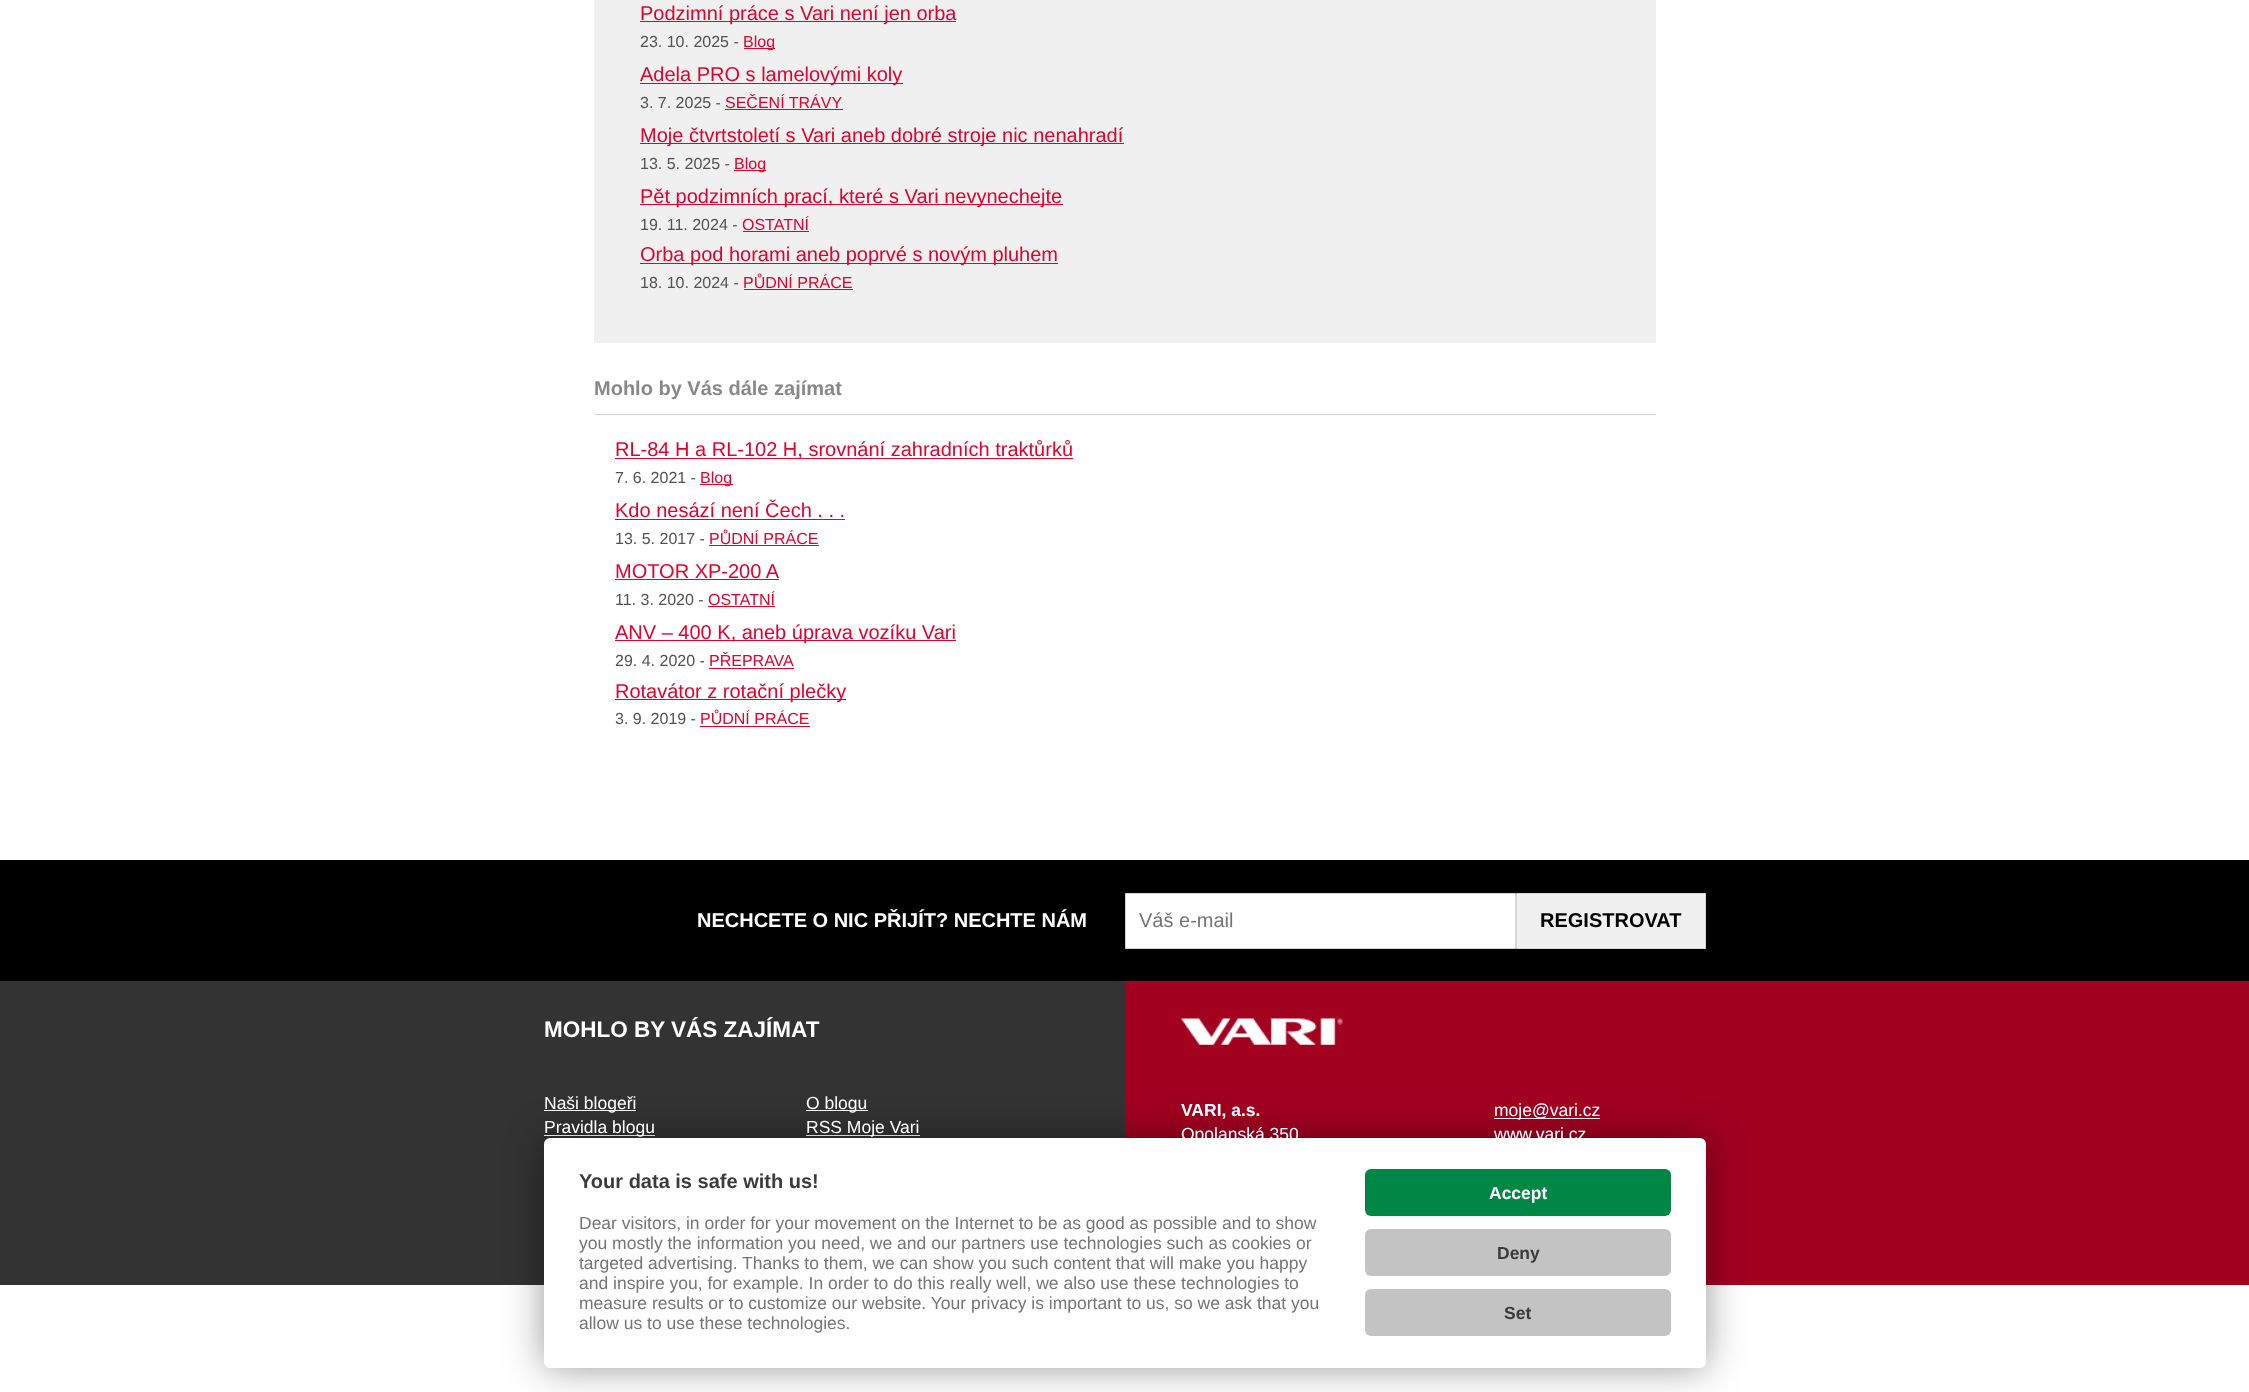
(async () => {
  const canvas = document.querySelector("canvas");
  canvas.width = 2249;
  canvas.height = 1392;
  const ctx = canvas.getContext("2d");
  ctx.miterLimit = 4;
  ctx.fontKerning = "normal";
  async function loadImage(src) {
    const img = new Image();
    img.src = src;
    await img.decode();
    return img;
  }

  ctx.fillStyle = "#ffffff";
  ctx.fillRect(0, 0, 2249, 1392);
  for (const [x, y, w, h, color] of [
    [594, 0, 1062, 343, "#f0f0f0"],
    [640, 21, 316, 1, "#e3012c"],
    [744, 48, 31, 1, "#e3012c"],
    [640, 83, 263, 1, "#e3012c"],
    [725, 109, 118, 1, "#e3012c"],
    [640, 143, 484, 1, "#e3012c"],
    [734, 170, 32, 1, "#e3012c"],
    [640, 204, 423, 1, "#e3012c"],
    [743, 231, 66, 1, "#e3012c"],
    [640, 263, 418, 1, "#e3012c"],
    [744, 289, 109, 1, "#e3012c"],
    [594, 414, 1062, 1, "#d5d5d5"],
    [615, 458, 458, 1, "#e3012c"],
    [700, 484, 33, 1, "#e3012c"],
    [615, 519, 230, 1, "#e3012c"],
    [709, 545, 110, 1, "#e3012c"],
    [615, 579, 164, 1, "#e3012c"],
    [708, 606, 67, 1, "#e3012c"],
    [615, 640, 341, 1, "#e3012c"],
    [709, 668, 85, 1, "#e3012c"],
    [615, 699, 231, 1, "#e3012c"],
    [700, 726, 110, 1, "#e3012c"],
    [0, 860, 2249, 121, "#000000"],
  ]) {
    ctx.fillStyle = color;
    ctx.fillRect(x, y, w, h);
  }
  ctx.fillStyle = "#ffffff";
  ctx.beginPath();
  ctx.rect(1125.5, 893.5, 390, 55);
  ctx.fill();
  ctx.strokeStyle = "#d5d5d5";
  ctx.stroke();
  ctx.fillStyle = "#f0f0f0";
  ctx.beginPath();
  ctx.rect(1516.5, 893.5, 189, 55);
  ctx.fill();
  ctx.strokeStyle = "#d6d6d6";
  ctx.stroke();
  for (const [x, y, w, h, color] of [
    [0, 981, 1125, 304, "#333333"],
    [544, 1110, 92, 1, "#ffffff"],
    [806, 1110, 62, 1, "#ffffff"],
    [544, 1135, 111, 1, "#ffffff"],
    [806, 1135, 114, 1, "#ffffff"],
    [1125, 981, 1124, 304, "#a20120"],
  ]) {
    ctx.fillStyle = color;
    ctx.fillRect(x, y, w, h);
  }
  ctx.drawImage(await loadImage("img/1.png"), 1181, 1018, 162, 27);
  ctx.fillStyle = "#ffffff";
  ctx.fillRect(1494, 1118, 106, 1);
  ctx.fillStyle = "rgba(0, 0, 0, 0.4)";
  ctx.filter = "blur(19px)";
  ctx.beginPath();
  ctx.roundRect(544, 1138, 1162, 230, 6);
  ctx.fill();
  ctx.filter = "none";
  ctx.fillStyle = "#ffffff";
  ctx.beginPath();
  ctx.roundRect(544, 1138, 1162, 230, 6);
  ctx.fill();
  ctx.fillStyle = "#008745";
  ctx.beginPath();
  ctx.roundRect(1365, 1169, 306, 47, 6);
  ctx.fill();
  ctx.fillStyle = "#c3c3c3";
  ctx.beginPath();
  ctx.roundRect(1365, 1229, 306, 47, 6);
  ctx.fill();
  ctx.beginPath();
  ctx.roundRect(1365, 1289, 306, 47, 6);
  ctx.fill();
  ctx.font = "20px Liberation Sans";
  ctx.fillStyle = "#e3012c";
  ctx.fillText("Podzimní práce s Vari není jen orba", 640, 20);
  ctx.font = "16px Liberation Sans";
  ctx.fillStyle = "#525252";
  ctx.fillText("23. 10. 2025 -", 640, 47);
  ctx.fillStyle = "#e3012c";
  ctx.fillText("Blog", 743, 47);
  ctx.font = "20px Liberation Sans";
  ctx.fillText("Adela PRO s lamelovými koly", 640, 81);
  ctx.font = "16px Liberation Sans";
  ctx.fillStyle = "#525252";
  ctx.fillText("3. 7. 2025 -", 640, 108);
  ctx.fillStyle = "#e3012c";
  ctx.fillText("SEČENÍ TRÁVY", 725, 108);
  ctx.font = "20px Liberation Sans";
  ctx.fillText("Moje čtvrtstoletí s Vari aneb dobré stroje nic nenahradí", 640, 142);
  ctx.font = "16px Liberation Sans";
  ctx.fillStyle = "#525252";
  ctx.fillText("13. 5. 2025 -", 640, 169);
  ctx.fillStyle = "#e3012c";
  ctx.fillText("Blog", 734, 169);
  ctx.font = "20px Liberation Sans";
  ctx.fillText("Pět podzimních prací, které s Vari nevynechejte", 640, 203);
  ctx.font = "16px Liberation Sans";
  ctx.fillStyle = "#525252";
  ctx.fillText("19. 11. 2024 -", 640, 230);
  ctx.fillStyle = "#e3012c";
  ctx.fillText("OSTATNÍ", 742, 230);
  ctx.font = "20px Liberation Sans";
  ctx.fillText("Orba pod horami aneb poprvé s novým pluhem", 640, 261);
  ctx.font = "16px Liberation Sans";
  ctx.fillStyle = "#525252";
  ctx.fillText("18. 10. 2024 -", 640, 288);
  ctx.fillStyle = "#e3012c";
  ctx.fillText("PŮDNÍ PRÁCE", 743, 288);
  ctx.font = "bold 20px Liberation Sans";
  ctx.fillStyle = "#888888";
  ctx.fillText("Mohlo by Vás dále zajímat", 594, 395);
  ctx.font = "20px Liberation Sans";
  ctx.fillStyle = "#e3012c";
  ctx.fillText("RL-84 H a RL-102 H, srovnání zahradních traktůrků", 615, 456);
  ctx.font = "16px Liberation Sans";
  ctx.fillStyle = "#525252";
  ctx.fillText("7. 6. 2021 -", 615, 483);
  ctx.fillStyle = "#e3012c";
  ctx.fillText("Blog", 700, 483);
  ctx.font = "20px Liberation Sans";
  ctx.fillText("Kdo nesází není Čech . . .", 615, 517);
  ctx.font = "16px Liberation Sans";
  ctx.fillStyle = "#525252";
  ctx.fillText("13. 5. 2017 -", 615, 544);
  ctx.fillStyle = "#e3012c";
  ctx.fillText("PŮDNÍ PRÁCE", 709, 544);
  ctx.font = "20px Liberation Sans";
  ctx.fillText("MOTOR XP-200 A", 615, 578);
  ctx.font = "16px Liberation Sans";
  ctx.fillStyle = "#525252";
  ctx.fillText("11. 3. 2020 -", 615, 605);
  ctx.fillStyle = "#e3012c";
  ctx.fillText("OSTATNÍ", 708, 605);
  ctx.font = "20px Liberation Sans";
  ctx.fillText("ANV – 400 K, aneb úprava vozíku Vari", 615, 639);
  ctx.font = "16px Liberation Sans";
  ctx.fillStyle = "#525252";
  ctx.fillText("29. 4. 2020 -", 615, 666);
  ctx.fillStyle = "#e3012c";
  ctx.fillText("PŘEPRAVA", 709, 666);
  ctx.font = "20px Liberation Sans";
  ctx.fillText("Rotavátor z rotační plečky", 615, 698);
  ctx.font = "16px Liberation Sans";
  ctx.fillStyle = "#525252";
  ctx.fillText("3. 9. 2019 -", 615, 724);
  ctx.fillStyle = "#e3012c";
  ctx.fillText("PŮDNÍ PRÁCE", 700, 724);
  ctx.font = "bold 20px Liberation Sans";
  ctx.fillStyle = "#ffffff";
  ctx.fillText("NECHCETE O NIC PŘIJÍT? NECHTE NÁM", 697, 927);
  ctx.font = "20px Liberation Sans";
  ctx.fillStyle = "#757575";
  ctx.fillText("Váš e-mail", 1139, 927);
  ctx.font = "bold 20px Liberation Sans";
  ctx.fillStyle = "#000000";
  ctx.fillText("REGISTROVAT", 1540, 927);
  ctx.font = "bold 22.5px Liberation Sans";
  ctx.fillStyle = "#ffffff";
  ctx.fillText("MOHLO BY VÁS ZAJÍMAT", 544, 1037);
  ctx.font = "17.5px Liberation Sans";
  for (const [text, x, y] of [
    ["Naši blogeři", 544, 1109],
    ["O blogu", 806, 1109],
    ["Pravidla blogu", 544, 1133],
    ["RSS Moje Vari", 806, 1133],
  ]) {
    ctx.fillText(text, x, y);
  }
  ctx.font = "bold 17.5px Liberation Sans";
  ctx.fillText("VARI, a.s.", 1181, 1116);
  ctx.font = "17.5px Liberation Sans";
  for (const [text, x, y] of [
    ["Opolanská 350", 1181, 1140],
    ["moje@vari.cz", 1494, 1116],
    ["www.vari.cz", 1494, 1140],
  ]) {
    ctx.fillText(text, x, y);
  }
  ctx.font = "bold 20px Liberation Sans";
  ctx.fillStyle = "#3b3b3b";
  ctx.fillText("Your data is safe with us!", 579, 1188);
  ctx.font = "17.5px Liberation Sans";
  ctx.fillStyle = "#757575";
  for (const [text, x, y] of [
    ["Dear visitors, in order for your movement on the Internet to be as good as possible and to show", 579, 1229],
    ["you mostly the information you need, we and our partners use technologies such as cookies or", 579, 1249],
    ["targeted advertising. Thanks to them, we can show you such content that will make you happy", 579, 1269],
    ["and inspire you, for example. In order to do this really well, we also use these technologies to", 579, 1289],
    ["measure results or to customize our website. Your privacy is important to us, so we ask that you", 579, 1309],
    ["allow us to use these technologies.", 579, 1329],
  ]) {
    ctx.fillText(text, x, y);
  }
  ctx.font = "bold 17.5px Liberation Sans";
  ctx.fillStyle = "#ffffff";
  ctx.fillText("Accept", 1489, 1199);
  ctx.fillStyle = "#3b3b3b";
  ctx.fillText("Deny", 1497, 1259);
  ctx.fillText("Set", 1504, 1319);
})();
